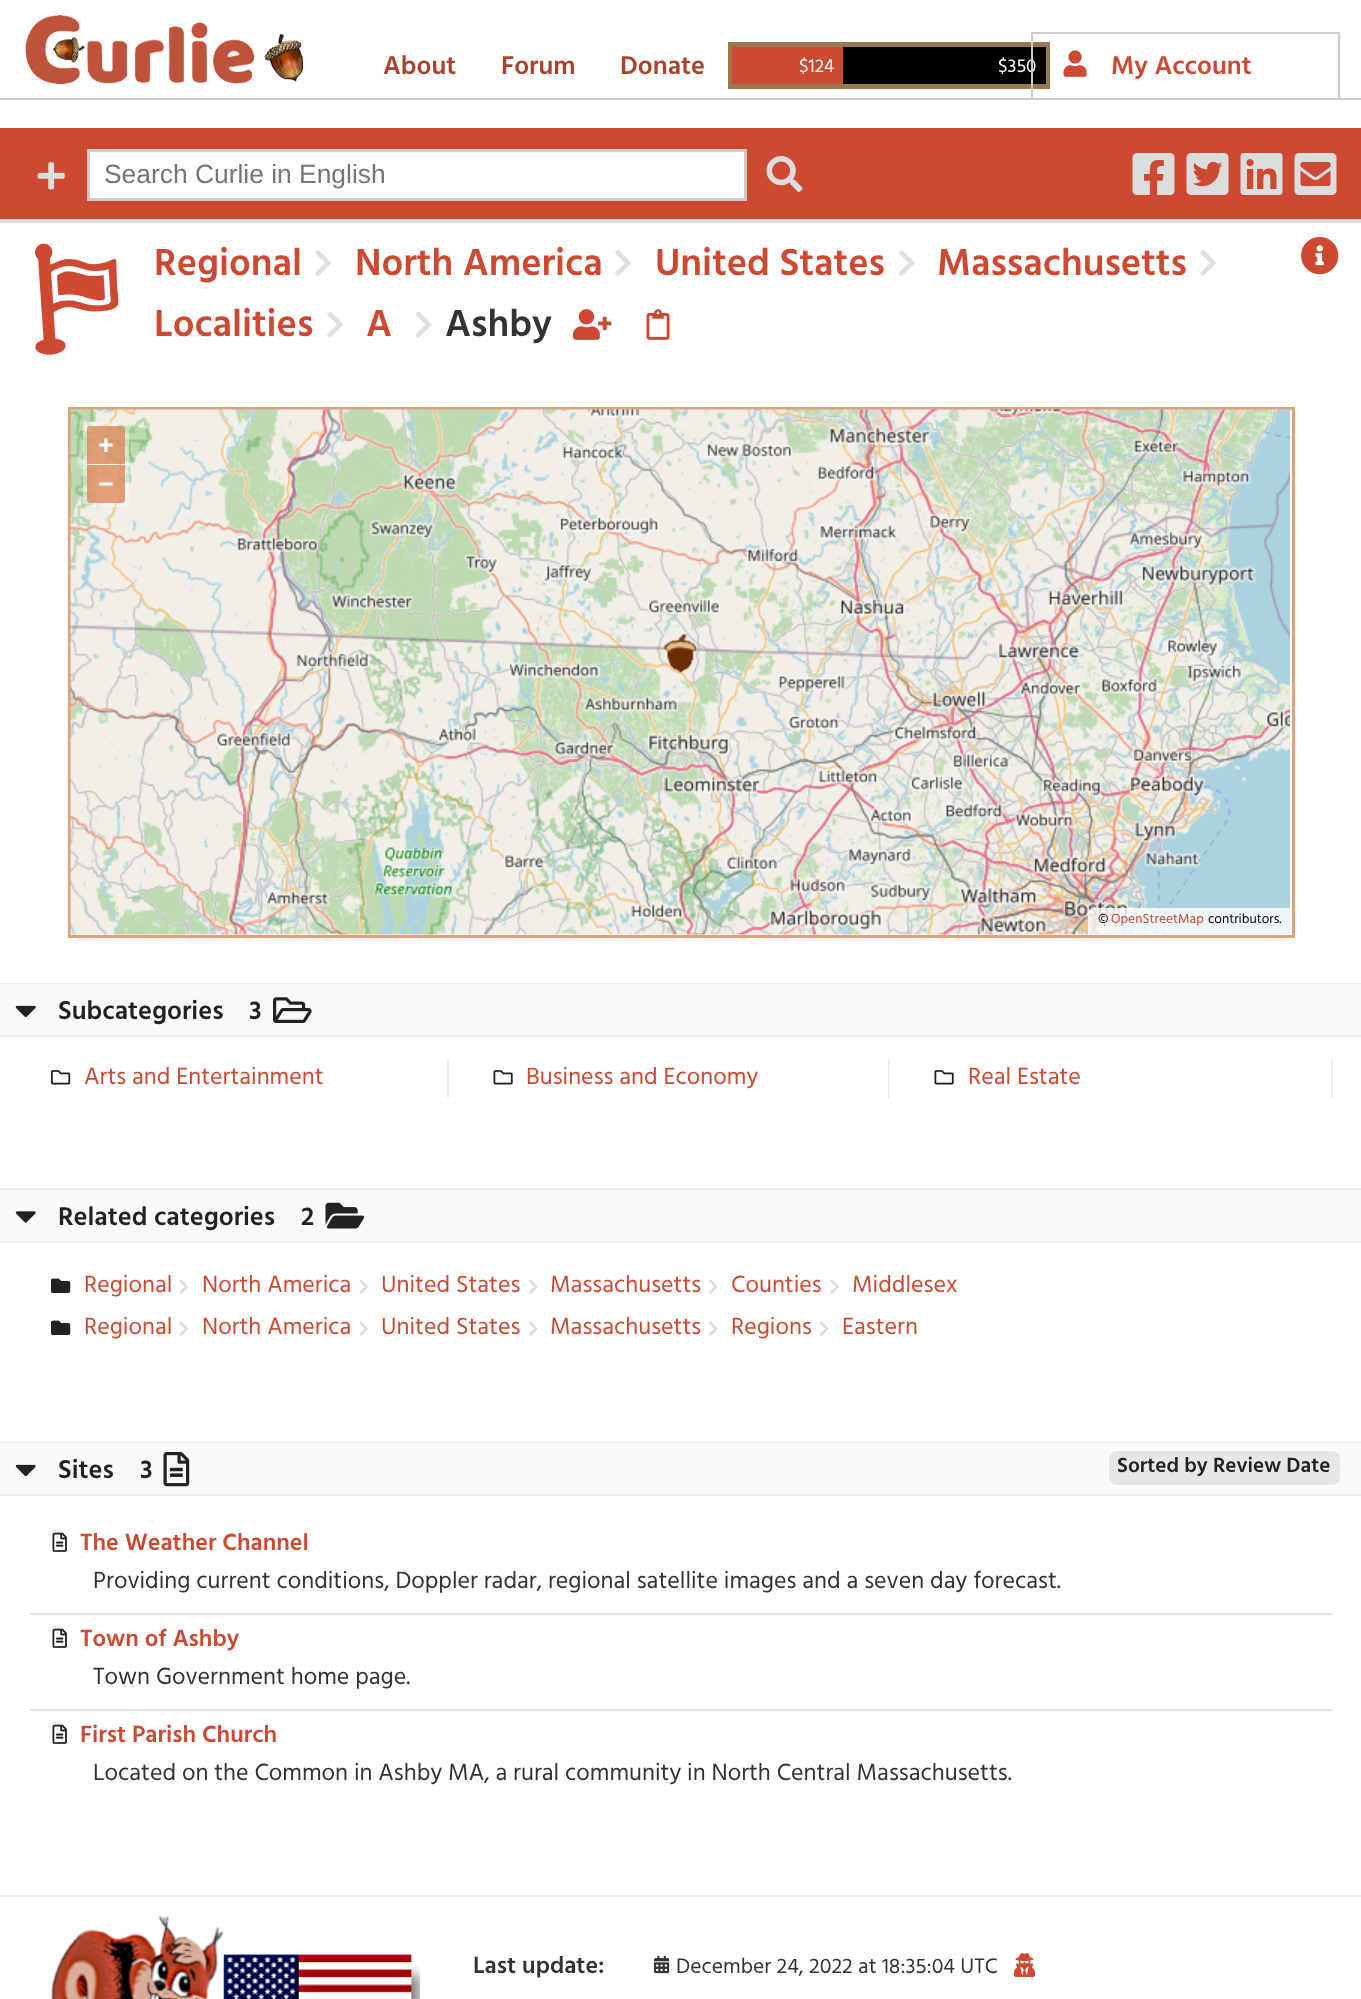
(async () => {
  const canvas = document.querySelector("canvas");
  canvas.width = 1361;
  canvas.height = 1999;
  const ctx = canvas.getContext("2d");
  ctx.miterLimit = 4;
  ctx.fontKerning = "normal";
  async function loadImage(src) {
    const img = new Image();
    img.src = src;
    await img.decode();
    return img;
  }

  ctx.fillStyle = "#ffffff";
  ctx.fillRect(0, 0, 1361, 1999);
  ctx.drawImage(await loadImage("img/1.png"), 25, 15, 279, 70);
  ctx.fillStyle = "#cccccc";
  ctx.fillRect(0, 98, 1361, 2);
  ctx.strokeStyle = "#9a784f";
  ctx.lineWidth = 5;
  ctx.strokeRect(730.5, 44.5, 317, 42);
  for (const [x, y, w, h, color] of [
    [732, 47, 111, 37, "#cd4932"],
    [843, 47, 203, 37, "#000000"],
    [1031, 32, 309, 2, "#cccccc"],
    [1338, 32, 2, 67, "#cccccc"],
  ]) {
    ctx.fillStyle = color;
    ctx.fillRect(x, y, w, h);
  }
  ctx.drawImage(await loadImage("img/2.png"), 1063, 50, 24, 27);
  ctx.fillStyle = "#cd4932";
  ctx.fillRect(0, 128, 1361, 91);
  ctx.fillStyle = "#dddddd";
  ctx.fillRect(0, 219, 1361, 4);
  ctx.drawImage(await loadImage("img/3.png"), 37, 162, 28, 28);
  ctx.fillStyle = "#ffffff";
  ctx.beginPath();
  ctx.rect(88.5, 150.5, 657, 49);
  ctx.fill();
  ctx.strokeStyle = "#cccccc";
  ctx.lineWidth = 3;
  ctx.stroke();
  ctx.drawImage(await loadImage("img/4.png"), 766, 156, 37, 36);
  ctx.drawImage(await loadImage("img/5.png"), 1132, 153, 43, 42);
  ctx.drawImage(await loadImage("img/6.png"), 1186, 153, 43, 42);
  ctx.drawImage(await loadImage("img/7.png"), 1240, 153, 43, 42);
  ctx.drawImage(await loadImage("img/8.png"), 1294, 153, 43, 42);
  ctx.drawImage(await loadImage("img/9.png"), 35, 243, 84, 112);
  ctx.drawImage(await loadImage("img/10.png"), 315, 250, 16, 26);
  ctx.drawImage(await loadImage("img/10.png"), 615, 250, 16, 26);
  ctx.drawImage(await loadImage("img/11.png"), 898, 250, 17, 26);
  ctx.drawImage(await loadImage("img/10.png"), 1200, 250, 16, 26);
  ctx.drawImage(await loadImage("img/12.png"), 327, 311, 16, 27);
  ctx.drawImage(await loadImage("img/13.png"), 415, 311, 17, 27);
  ctx.drawImage(await loadImage("img/14.png"), 573, 309, 39, 31);
  ctx.drawImage(await loadImage("img/15.png"), 646, 309, 24, 31);
  ctx.drawImage(await loadImage("img/16.png"), 1301, 237, 38, 38);
  ctx.strokeStyle = "#e4a27c";
  ctx.strokeRect(69.5, 408.5, 1224, 528);
  ctx.drawImage(await loadImage("img/17.png"), 70, 409, 1220, 526);
  ctx.fillStyle = "rgba(255, 255, 255, 0.4)";
  ctx.beginPath();
  ctx.roundRect(83, 422, 46, 85, 6);
  ctx.fill();
  ctx.fillStyle = "rgba(220, 132, 83, 0.76)";
  ctx.beginPath();
  ctx.roundRect(87, 426, 38, 38, [3, 3, 0, 0]);
  ctx.fill();
  ctx.beginPath();
  ctx.roundRect(87, 465, 38, 38, [0, 0, 3, 3]);
  ctx.fill();
  ctx.fillStyle = "rgba(255, 255, 255, 0.8)";
  ctx.beginPath();
  ctx.roundRect(1088, 908, 204, 27, [6, 0, 0, 0]);
  ctx.fill();
  for (const [x, y, w, h, color] of [
    [0, 983, 1361, 1, "#eeeeee"],
    [0, 984, 1361, 51, "#fafafa"],
    [0, 1035, 1361, 2, "#eeeeee"],
  ]) {
    ctx.fillStyle = color;
    ctx.fillRect(x, y, w, h);
  }
  ctx.drawImage(await loadImage("img/18.png"), 15, 1005, 21, 13);
  ctx.drawImage(await loadImage("img/19.png"), 273, 997, 39, 26);
  ctx.fillRect(447, 1059, 2, 39);
  ctx.drawImage(await loadImage("img/20.png"), 51, 1070, 20, 15);
  ctx.fillRect(888, 1059, 2, 39);
  ctx.drawImage(await loadImage("img/21.png"), 493, 1070, 20, 15);
  ctx.fillRect(1331, 1059, 2, 39);
  ctx.drawImage(await loadImage("img/21.png"), 934, 1070, 20, 15);
  for (const [x, y, w, h, color] of [
    [0, 1188, 1361, 2, "#eeeeee"],
    [0, 1190, 1361, 51, "#fafafa"],
    [0, 1241, 1361, 2, "#eeeeee"],
  ]) {
    ctx.fillStyle = color;
    ctx.fillRect(x, y, w, h);
  }
  ctx.drawImage(await loadImage("img/22.png"), 15, 1211, 21, 12);
  ctx.drawImage(await loadImage("img/23.png"), 325, 1202, 40, 27);
  ctx.drawImage(await loadImage("img/24.png"), 51, 1278, 20, 15);
  ctx.drawImage(await loadImage("img/25.png"), 179, 1279, 9, 15);
  ctx.drawImage(await loadImage("img/25.png"), 359, 1279, 9, 15);
  ctx.drawImage(await loadImage("img/26.png"), 529, 1279, 9, 15);
  ctx.drawImage(await loadImage("img/26.png"), 709, 1279, 9, 15);
  ctx.drawImage(await loadImage("img/25.png"), 830, 1279, 9, 15);
  ctx.drawImage(await loadImage("img/24.png"), 51, 1320, 20, 15);
  ctx.drawImage(await loadImage("img/25.png"), 179, 1321, 9, 15);
  ctx.drawImage(await loadImage("img/25.png"), 359, 1321, 9, 15);
  ctx.drawImage(await loadImage("img/26.png"), 529, 1321, 9, 15);
  ctx.drawImage(await loadImage("img/26.png"), 709, 1321, 9, 15);
  ctx.drawImage(await loadImage("img/26.png"), 820, 1321, 9, 15);
  for (const [x, y, w, h, color] of [
    [0, 1442, 1361, 1, "#eeeeee"],
    [0, 1443, 1361, 51, "#fafafa"],
    [0, 1494, 1361, 2, "#eeeeee"],
  ]) {
    ctx.fillStyle = color;
    ctx.fillRect(x, y, w, h);
  }
  ctx.drawImage(await loadImage("img/18.png"), 15, 1464, 21, 13);
  ctx.drawImage(await loadImage("img/27.png"), 163, 1452, 27, 35);
  ctx.fillStyle = "#e7e7e7";
  ctx.beginPath();
  ctx.roundRect(1109, 1451, 231, 34, 8);
  ctx.fill();
  ctx.drawImage(await loadImage("img/28.png"), 52, 1532, 15, 20);
  ctx.fillStyle = "#f5dbd6";
  ctx.fillRect(30, 1613, 1302, 2);
  ctx.drawImage(await loadImage("img/28.png"), 52, 1628, 15, 20);
  ctx.fillRect(30, 1709, 1302, 2);
  ctx.drawImage(await loadImage("img/28.png"), 52, 1724, 15, 20);
  ctx.fillStyle = "#eeeeee";
  ctx.fillRect(0, 1895, 1361, 2);
  ctx.drawImage(await loadImage("img/29.png"), 51, 1915, 369, 84);
  ctx.drawImage(await loadImage("img/30.png"), 654, 1955, 16, 19);
  ctx.drawImage(await loadImage("img/31.png"), 1014, 1953, 21, 24);
  ctx.font = "600 26.4px Hind";
  ctx.fillStyle = "#aa432c";
  for (const [text, x, y] of [
    ["About", 383, 74],
    ["Forum", 501, 74],
    ["Donate", 620, 74],
  ]) {
    ctx.fillText(text, x, y);
  }
  ctx.font = "19px Hind";
  ctx.fillStyle = "#ffffff";
  ctx.fillText("$124", 799, 72);
  ctx.fillText("$350", 998, 72);
  ctx.fillStyle = "#cccccc";
  ctx.fillRect(1031, 32, 2, 67);
  ctx.font = "600 26.4px Hind";
  ctx.fillStyle = "#cd4932";
  ctx.fillText("My Account", 1111, 74);
  ctx.font = "26.4px Liberation Sans";
  ctx.fillStyle = "#757575";
  ctx.fillText("Search Curlie in English", 104, 183);
  ctx.font = "600 38.5px Hind";
  ctx.fillStyle = "#cd4932";
  for (const [text, x, y] of [
    ["Regional", 154, 275],
    ["North America", 355, 275],
    ["United States", 655, 275],
    ["Massachusetts", 937, 275],
    ["Localities", 154, 336],
    ["A", 366, 336],
  ]) {
    ctx.fillText(text, x, y);
  }
  ctx.fillStyle = "#333333";
  ctx.fillText("Ashby", 445, 336);
  ctx.font = "bold 27px Liberation Sans";
  ctx.fillStyle = "#ffffff";
  ctx.fillText("+", 98, 454);
  ctx.fillText("−", 98, 493);
  ctx.font = "13.5px Hind";
  ctx.fillStyle = "#000000";
  ctx.fillText("©", 1098, 923);
  ctx.fillStyle = "#cd4932";
  ctx.fillText("OpenStreetMap", 1111, 923);
  ctx.fillStyle = "#000000";
  ctx.fillText("contributors.", 1208, 923);
  ctx.font = "600 26.4px Hind";
  ctx.fillStyle = "#222222";
  ctx.fillText("Subcategories", 58, 1019);
  ctx.fillText("3", 249, 1019);
  ctx.font = "24px Hind";
  ctx.fillStyle = "#cd4932";
  for (const [text, x, y] of [
    ["Arts and Entertainment", 84, 1084],
    ["Business and Economy", 526, 1084],
    ["Real Estate", 968, 1084],
  ]) {
    ctx.fillText(text, x, y);
  }
  ctx.font = "600 26.4px Hind";
  ctx.fillStyle = "#222222";
  ctx.fillText("Related categories", 58, 1225);
  ctx.fillText("2", 301, 1225);
  ctx.font = "24px Hind";
  ctx.fillStyle = "#cd4932";
  for (const [text, x, y] of [
    ["Regional", 84, 1292],
    ["North America", 202, 1292],
    ["United States", 381, 1292],
    ["Massachusetts", 550, 1292],
    ["Counties", 731, 1292],
    ["Middlesex", 852, 1292],
    ["Regional", 84, 1334],
    ["North America", 202, 1334],
    ["United States", 381, 1334],
    ["Massachusetts", 550, 1334],
    ["Regions", 731, 1334],
    ["Eastern", 842, 1334],
  ]) {
    ctx.fillText(text, x, y);
  }
  ctx.font = "600 26.4px Hind";
  ctx.fillStyle = "#222222";
  ctx.fillText("Sites", 58, 1478);
  ctx.fillText("3", 140, 1478);
  ctx.font = "600 21.1px Hind";
  ctx.fillText("Sorted by Review Date", 1117, 1472);
  ctx.font = "600 24px Hind";
  ctx.fillStyle = "#cd4932";
  ctx.fillText("The Weather Channel", 80, 1550);
  ctx.font = "24px Hind";
  ctx.fillStyle = "#333333";
  ctx.fillText("Providing current conditions, Doppler radar, regional satellite images and a seven day forecast.", 93, 1588);
  ctx.font = "600 24px Hind";
  ctx.fillStyle = "#cd4932";
  ctx.fillText("Town of Ashby", 80, 1646);
  ctx.font = "24px Hind";
  ctx.fillStyle = "#333333";
  ctx.fillText("Town Government home page.", 93, 1684);
  ctx.font = "600 24px Hind";
  ctx.fillStyle = "#cd4932";
  ctx.fillText("First Parish Church", 80, 1742);
  ctx.font = "24px Hind";
  ctx.fillStyle = "#333333";
  ctx.fillText("Located on the Common in Ashby MA, a rural community in North Central Massachusetts.", 93, 1780);
  ctx.font = "600 24px Hind";
  ctx.fillText("Last update:", 473, 1973);
  ctx.font = "21.6px Hind";
  ctx.fillText("December 24, 2022 at 18:35:04 UTC", 676, 1973);
})();
